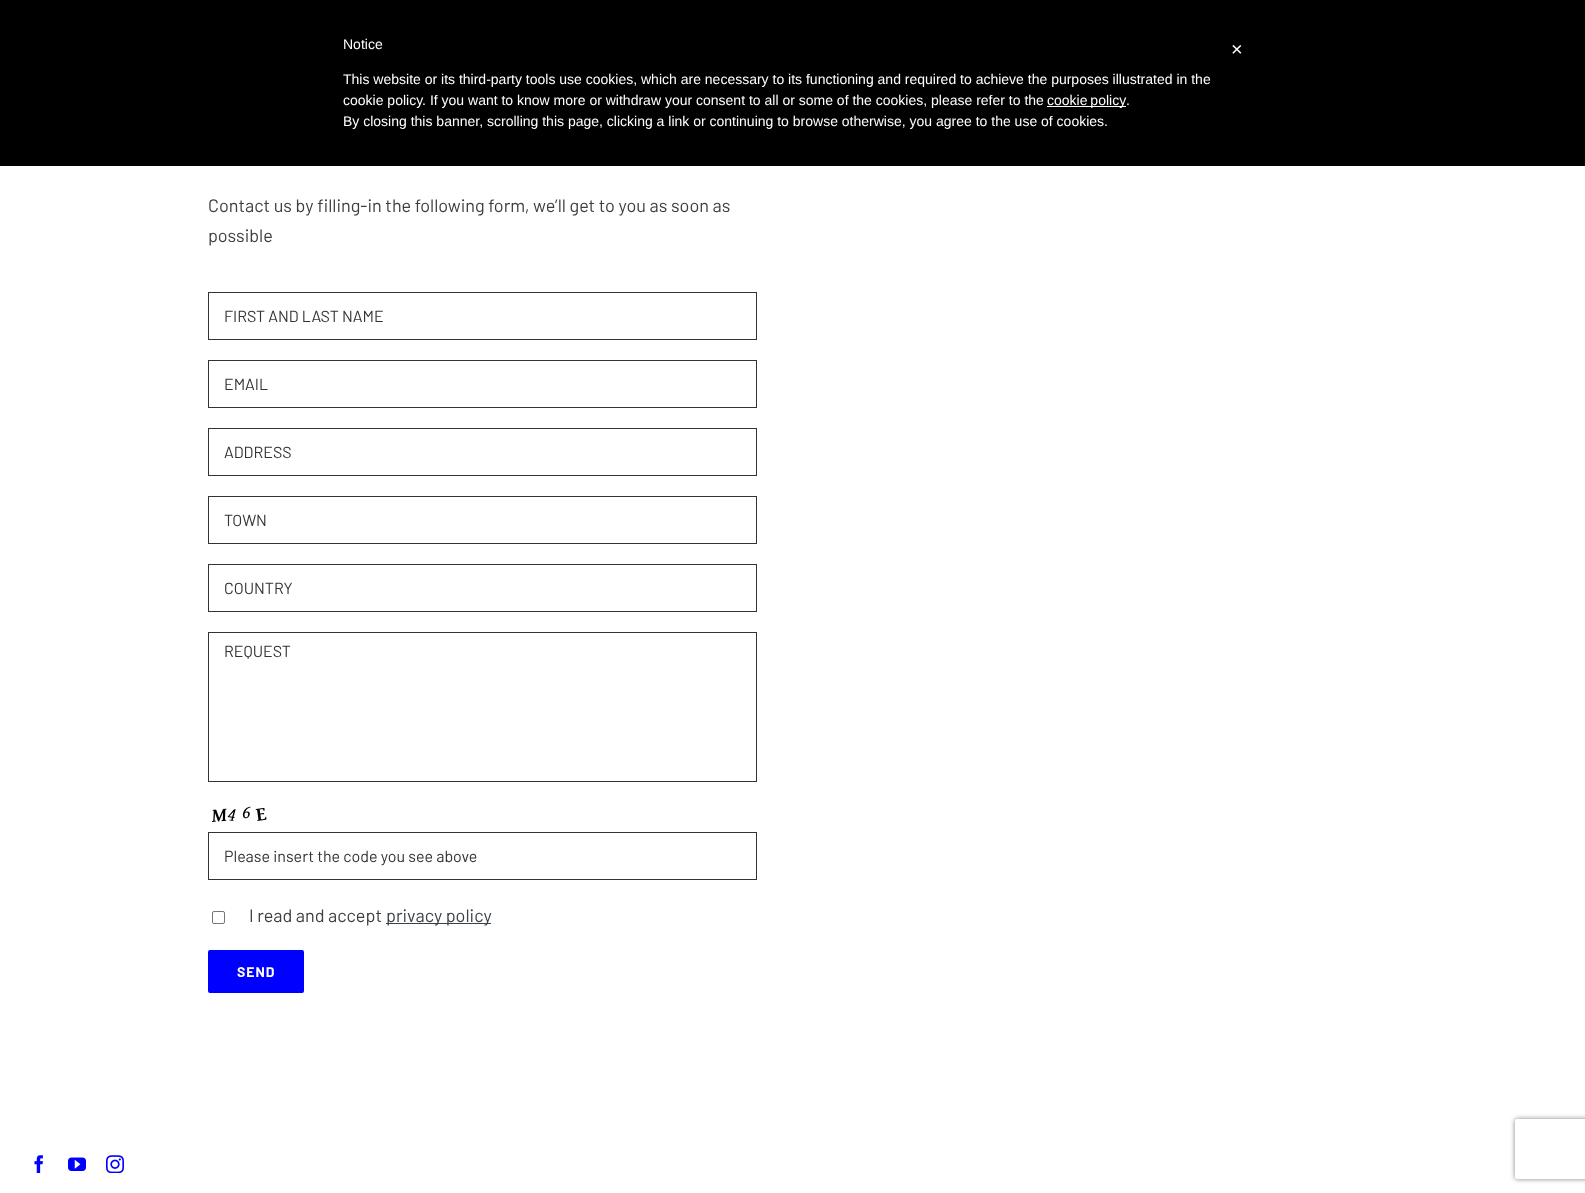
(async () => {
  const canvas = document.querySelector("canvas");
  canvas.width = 1585;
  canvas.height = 1193;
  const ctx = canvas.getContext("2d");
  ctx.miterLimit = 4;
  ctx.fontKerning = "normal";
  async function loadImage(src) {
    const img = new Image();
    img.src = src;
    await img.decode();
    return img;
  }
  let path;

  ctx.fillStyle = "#ffffff";
  ctx.fillRect(0, 0, 1585, 1193);
  ctx.fillStyle = "#000000";
  ctx.fillRect(0, 0, 1585, 166);
  ctx.fillStyle = "#ffffff";
  ctx.fillRect(1047, 106, 79, 1);
  ctx.strokeStyle = "#333333";
  ctx.strokeRect(208.5, 292.5, 548, 47);
  ctx.strokeRect(208.5, 360.5, 548, 47);
  ctx.strokeRect(208.5, 428.5, 548, 47);
  ctx.strokeRect(208.5, 496.5, 548, 47);
  ctx.strokeRect(208.5, 564.5, 548, 47);
  ctx.strokeRect(208.5, 632.5, 548, 149);
  ctx.drawImage(await loadImage("img/1.png"), 212, 806, 55, 16);
  ctx.strokeRect(208.5, 832.5, 548, 47);
  ctx.beginPath();
  ctx.roundRect(212.5, 911.5, 12, 12, 1.5);
  ctx.strokeStyle = "#767676";
  ctx.stroke();
  ctx.fillStyle = "#3a4149";
  ctx.fillRect(386, 923, 105, 1);
  ctx.fillStyle = "#0000ff";
  ctx.beginPath();
  ctx.roundRect(208, 950, 96, 43, 2);
  ctx.fill();
  ctx.drawImage(await loadImage("img/2.png"), 34, 1155, 9, 18);
  ctx.drawImage(await loadImage("img/3.png"), 68, 1157, 18, 14);
  ctx.drawImage(await loadImage("img/4.png"), 106, 1155, 18, 18);
  ctx.save();
  path = new Path2D("M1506 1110H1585V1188H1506ZM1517 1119H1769C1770 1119 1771 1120 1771 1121V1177C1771 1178 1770 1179 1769 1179H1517C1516 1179 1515 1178 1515 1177V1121C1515 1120 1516 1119 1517 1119Z");
  ctx.clip(path, "evenodd");
  ctx.fillStyle = "#808080";
  ctx.filter = "blur(2.5px)";
  ctx.beginPath();
  ctx.roundRect(1515, 1119, 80, 60, 2);
  ctx.fill();
  ctx.filter = "none";
  ctx.restore();
  ctx.font = "14px Liberation Sans";
  ctx.fillStyle = "#ffffff";
  for (const [text, x, y] of [
    ["Notice", 343, 49],
    ["This website or its third-party tools use cookies, which are necessary to its functioning and required to achieve the purposes illustrated in the", 343, 84],
    ["cookie policy. If you want to know more or withdraw your consent to all or some of the cookies, please refer to the", 343, 105],
  ]) {
    ctx.fillText(text, x, y);
  }
  ctx.wordSpacing = "-1px";
  ctx.fillText("cookie policy", 1047, 105);
  ctx.wordSpacing = "0px";
  ctx.fillText(".", 1126, 105);
  ctx.fillText("By closing this banner, scrolling this page, clicking a link or continuing to browse otherwise, you agree to the use of cookies.", 343, 126);
  ctx.font = "20px Liberation Sans";
  ctx.fillText("×", 1231, 56);
  ctx.font = "18px Barlow";
  ctx.fillStyle = "#3e3e3e";
  ctx.fillText("Contact us by filling-in the following form, we’ll get to you as soon as", 208, 212);
  ctx.fillText("possible", 208, 242);
  ctx.font = "16px Barlow";
  ctx.fillStyle = "#333333";
  for (const [text, x, y] of [
    ["FIRST AND LAST NAME", 224, 322],
    ["EMAIL", 224, 390],
    ["ADDRESS", 224, 458],
    ["TOWN", 224, 526],
    ["COUNTRY", 224, 594],
    ["REQUEST", 224, 657],
    ["Please insert the code you see above", 224, 862],
  ]) {
    ctx.fillText(text, x, y);
  }
  ctx.font = "18px Barlow";
  ctx.fillStyle = "#3e3e3e";
  ctx.fillText("I read and accept", 249, 922);
  ctx.fillStyle = "#3a4149";
  ctx.fillText("privacy policy", 386, 922);
  ctx.letterSpacing = "1px";
  ctx.font = "bold 14px Barlow";
  ctx.fillStyle = "#ffffff";
  ctx.fillText("SEND", 237, 977);
})();
